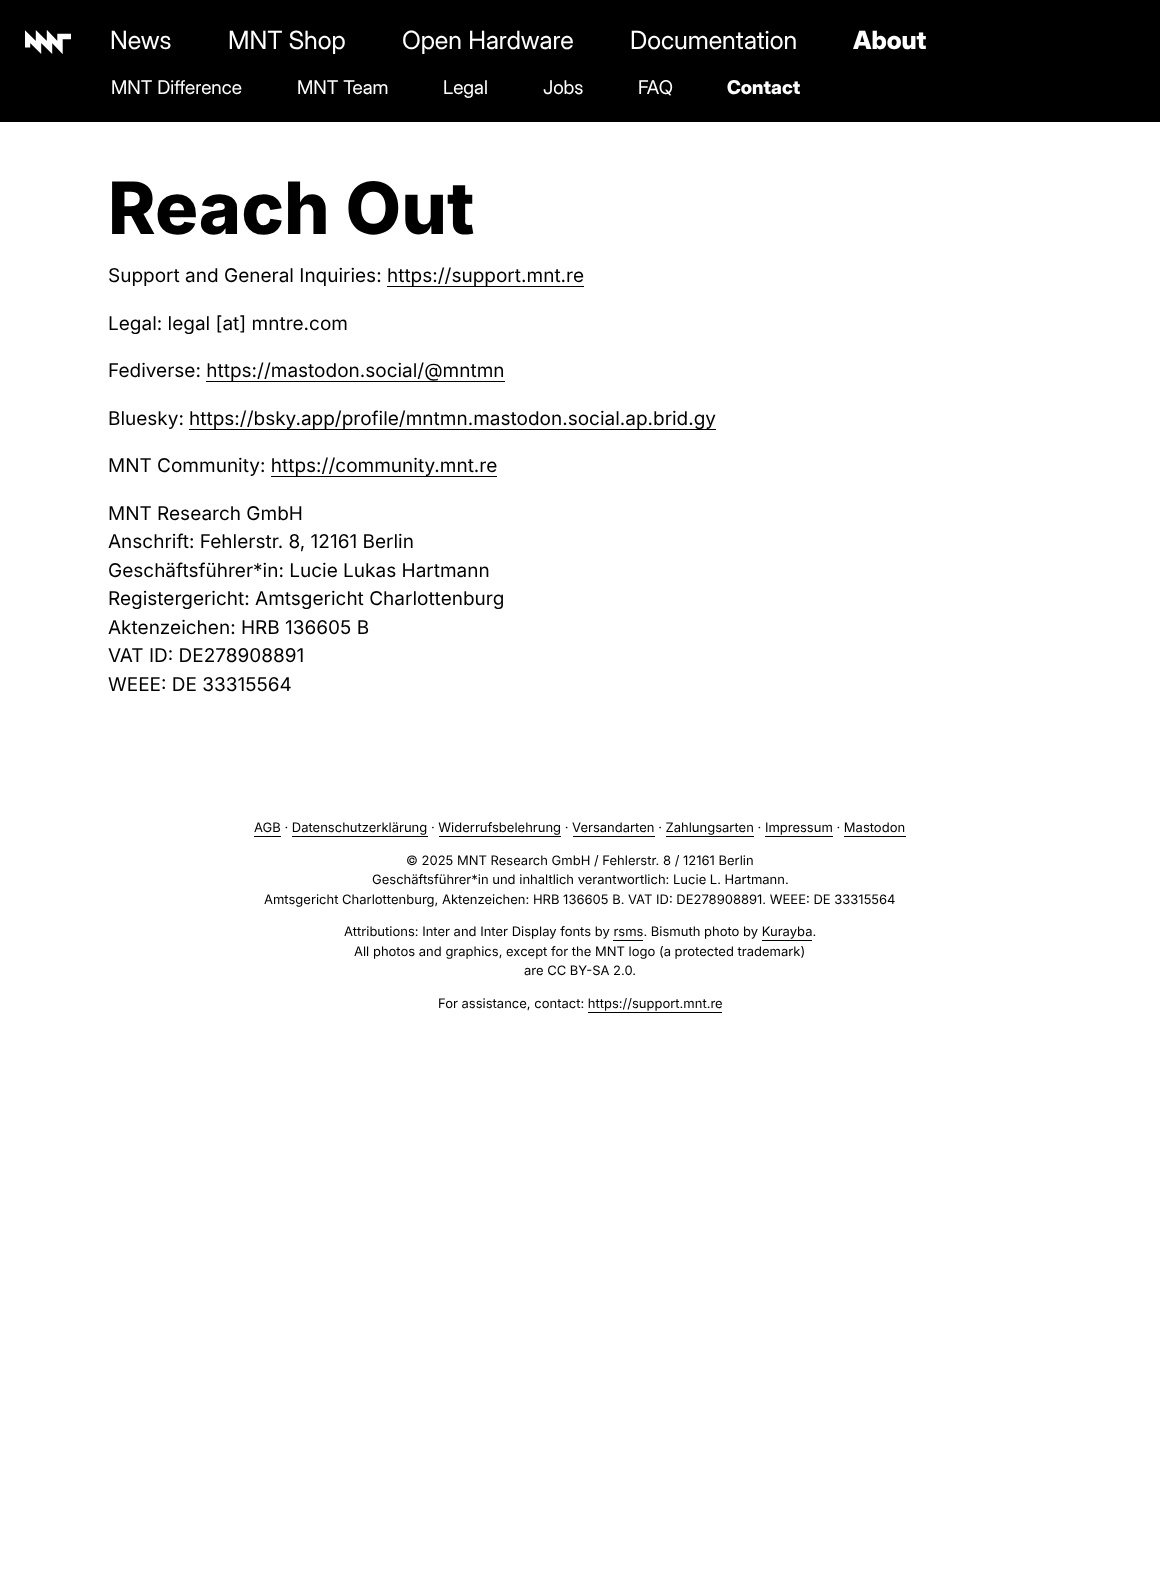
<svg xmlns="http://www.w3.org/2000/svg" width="1160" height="1583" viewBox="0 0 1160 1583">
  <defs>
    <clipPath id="clip1"><rect x="25" y="30" width="46" height="24"/></clipPath>
  </defs>
  <rect width="100%" height="100%" fill="rgb(255,255,255)"/>
  <rect x="0" y="0" width="1160" height="122" fill="rgb(0,0,0)"/>
  <g clip-path="url(#clip1)">
    <path d="M27.5 47.5V36.5L38.5 47.5V36.5L49.5 47.5V36.5L60 47.5V36.5H71" fill="none" stroke="rgb(255,255,255)" stroke-width="5.4"/>
  </g>
  <g font-family="Inter Display" font-size="25" fill="rgb(255,255,255)">
    <text x="110" y="49">News</text>
    <text x="228" y="49">MNT Shop</text>
    <text x="402" y="49">Open Hardware</text>
    <text x="630" y="49">Documentation</text>
  </g>
  <text x="853" y="49" font-family="Inter Display" font-size="25" font-weight="800" fill="rgb(255,255,255)">About</text>
  <g font-family="Inter Display" font-size="19" fill="rgb(255,255,255)">
    <text x="111" y="94">MNT Difference</text>
    <text x="297" y="94">MNT Team</text>
    <text x="443" y="94">Legal</text>
    <text x="543" y="94">Jobs</text>
    <text x="638" y="94">FAQ</text>
  </g>
  <text x="727" y="94" font-family="Inter Display" font-size="19" font-weight="800" fill="rgb(255,255,255)">Contact</text>
  <text x="108" y="234" font-family="Inter" font-size="72" font-weight="800" fill="rgb(0,0,0)">Reach Out</text>
  <text x="108" y="282" font-family="Inter" font-size="19" fill="rgb(0,0,0)">Support and General Inquiries: https://support.mnt.re</text>
  <rect x="387" y="286" width="197" height="1" fill="rgb(0,0,0)"/>
  <g font-family="Inter" font-size="19" fill="rgb(0,0,0)">
    <text x="108" y="330">Legal: legal [at] mntre.com</text>
    <text x="108" y="377">Fediverse: https://mastodon.social/@mntmn</text>
  </g>
  <rect x="206" y="381" width="299" height="1" fill="rgb(0,0,0)"/>
  <text x="108" y="425" font-family="Inter" font-size="19" fill="rgb(0,0,0)">Bluesky:</text>
  <rect x="189" y="429" width="527" height="1" fill="rgb(0,0,0)"/>
  <g font-family="Inter" font-size="19" fill="rgb(0,0,0)">
    <text x="189" y="425">https://bsky.app/profile/mntmn.mastodon.social.ap.brid.gy</text>
    <text x="108" y="472">MNT Community: https://community.mnt.re</text>
  </g>
  <rect x="271" y="476" width="226" height="1" fill="rgb(0,0,0)"/>
  <g font-family="Inter" font-size="19" fill="rgb(0,0,0)">
    <text>
      <tspan x="108" y="520">MNT Research GmbH</tspan>
      <tspan x="108" y="548">Anschrift: Fehlerstr. 8, 12161 Berlin</tspan>
      <tspan x="108" y="577">Geschäftsführer*in: Lucie Lukas Hartmann</tspan>
      <tspan x="108" y="605">Registergericht: Amtsgericht Charlottenburg</tspan>
      <tspan x="108" y="634">Aktenzeichen: HRB 136605 B</tspan>
      <tspan x="108" y="662">VAT ID: DE278908891</tspan>
      <tspan x="108" y="691">WEEE: DE 33315564</tspan>
    </text>
  </g>
  <text x="254" y="832" font-family="Inter" font-size="13" fill="rgb(0,0,0)">AGB · Datenschutzerklärung · Widerrufsbelehrung · Versandarten · Zahlungsarten · Impressum · Mastodon</text>
  <rect x="254" y="836" width="27" height="1" fill="rgb(0,0,0)"/>
  <rect x="292" y="836" width="136" height="1" fill="rgb(0,0,0)"/>
  <rect x="439" y="836" width="122" height="1" fill="rgb(0,0,0)"/>
  <rect x="573" y="836" width="82" height="1" fill="rgb(0,0,0)"/>
  <rect x="666" y="836" width="88" height="1" fill="rgb(0,0,0)"/>
  <rect x="765" y="836" width="68" height="1" fill="rgb(0,0,0)"/>
  <rect x="844" y="836" width="62" height="1" fill="rgb(0,0,0)"/>
  <g font-family="Inter" font-size="13" fill="rgb(0,0,0)">
    <text x="406" y="865">© 2025 MNT Research GmbH / Fehlerstr. 8 / 12161 Berlin</text>
    <text x="372" y="884">Geschäftsführer*in und inhaltlich verantwortlich: Lucie L. Hartmann.</text>
    <text x="264" y="904">Amtsgericht Charlottenburg, Aktenzeichen: HRB 136605 B. VAT ID: DE278908891. WEEE: DE 33315564</text>
    <text x="344" y="936">Attributions: Inter and Inter Display fonts by rsms. Bismuth photo by Kurayba.</text>
  </g>
  <rect x="613" y="940" width="30" height="1" fill="rgb(0,0,0)"/>
  <rect x="762" y="940" width="50" height="1" fill="rgb(0,0,0)"/>
  <g font-family="Inter" font-size="13" fill="rgb(0,0,0)">
    <text x="354" y="956">All photos and graphics, except for the MNT logo (a protected trademark)</text>
    <text x="524" y="975">are CC BY-SA 2.0.</text>
    <text x="438" y="1008">For assistance, contact: https://support.mnt.re</text>
  </g>
  <rect x="588" y="1012" width="134" height="1" fill="rgb(0,0,0)"/>
</svg>
